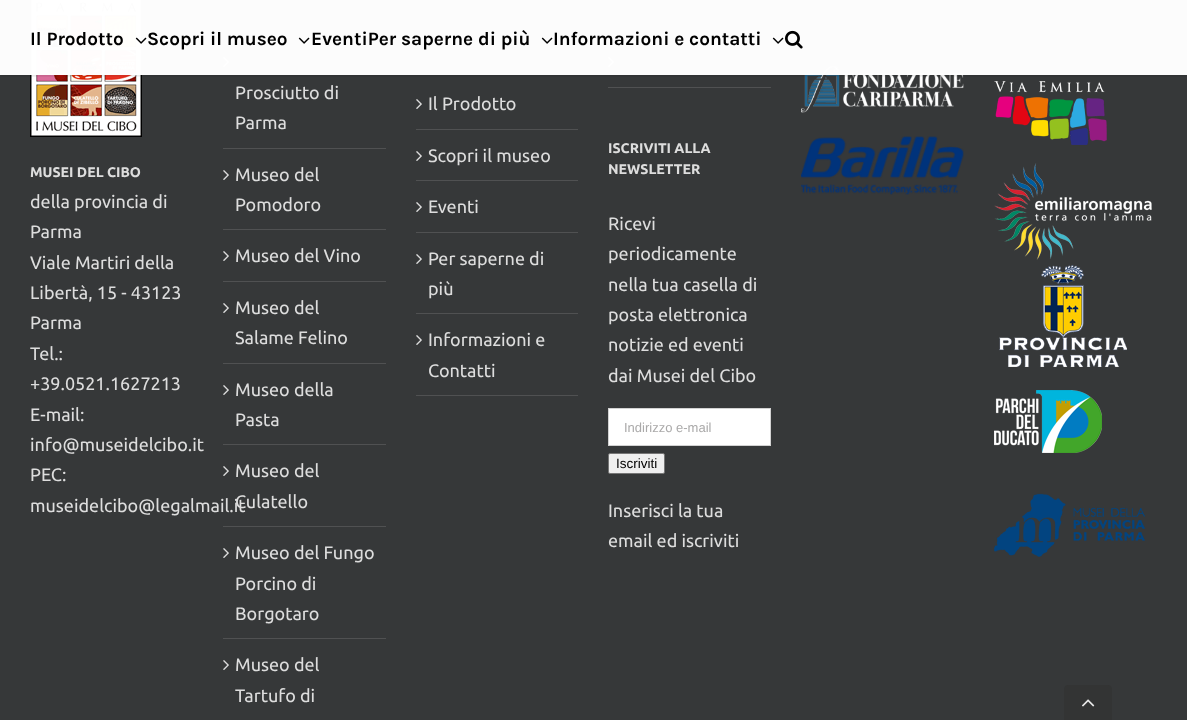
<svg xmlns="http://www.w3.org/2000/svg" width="1187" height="720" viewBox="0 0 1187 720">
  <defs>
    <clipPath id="clip1"><rect x="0" y="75" width="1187" height="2"/></clipPath>
  </defs>
  <rect width="100%" height="100%" fill="rgb(54,56,57)"/>
  <image x="30" y="0" width="112" height="137" href="pic4.png"/>
  <image x="223" y="57" width="6" height="10" href="pic5.png"/>
  <image x="608" y="57" width="6" height="10" href="pic5.png"/>
  <image x="801" y="66" width="163" height="47" href="pic6.png"/>
  <image x="994" y="81" width="113" height="64" href="pic8.png"/>
  <g clip-path="url(#clip1)">
    <rect x="0" y="1" width="1187" height="75" fill="rgba(0,0,0,0.12)" filter="blur(1.5px)"/>
  </g>
  <rect x="0" y="0" width="1187" height="75" fill="rgba(255,255,255,0.99)"/>
  <text x="30" y="45" font-family="Karla" font-size="19" font-weight="bold" fill="rgb(0,0,0)">Il Prodotto</text>
  <image x="135" y="37" width="12" height="7" href="pic1.png"/>
  <text x="147" y="45" font-family="Karla" font-size="19" font-weight="bold" fill="rgb(0,0,0)">Scopri il museo</text>
  <image x="298" y="37" width="12" height="7" href="pic2.png"/>
  <text x="311" y="45" font-family="Karla" font-size="19" font-weight="bold" fill="rgb(0,0,0)">EventiPer saperne di più</text>
  <image x="541" y="37" width="12" height="7" href="pic2.png"/>
  <text x="553" y="45" font-family="Karla" font-size="19" font-weight="bold" fill="rgb(0,0,0)">Informazioni e contatti</text>
  <image x="772" y="37" width="12" height="7" href="pic2.png"/>
  <image x="785" y="30" width="18" height="19" href="pic3.png"/>
  <text x="30" y="177" font-family="Ubuntu" font-size="14" font-weight="bold" fill="rgb(221,221,221)">MUSEI DEL CIBO</text>
  <g font-family="Ubuntu" font-size="18" fill="rgb(221,221,221)">
    <text>
      <tspan x="30" y="208">della provincia di</tspan>
      <tspan x="30" y="238">Parma</tspan>
      <tspan x="30" y="269">Viale Martiri della</tspan>
      <tspan x="30" y="299">Libertà, 15 - 43123</tspan>
      <tspan x="30" y="329">Parma</tspan>
      <tspan x="30" y="360">Tel.:</tspan>
      <tspan x="30" y="390">+39.0521.1627213</tspan>
      <tspan x="30" y="421">E-mail:</tspan>
      <tspan x="30" y="451">info@museidelcibo.it</tspan>
      <tspan x="30" y="481">PEC:</tspan>
      <tspan x="30" y="512">museidelcibo@legalmail.it</tspan>
    </text>
  </g>
  <rect x="223" y="148" width="163" height="1" fill="rgb(80,81,82)"/>
  <g font-family="Ubuntu" font-size="18" fill="rgb(221,221,221)">
    <text>
      <tspan x="235" y="99">Prosciutto di</tspan>
      <tspan x="235" y="129">Parma</tspan>
    </text>
  </g>
  <rect x="223" y="229" width="163" height="1" fill="rgb(80,81,82)"/>
  <image x="223" y="170" width="6" height="10" href="pic5.png"/>
  <g font-family="Ubuntu" font-size="18" fill="rgb(221,221,221)">
    <text>
      <tspan x="235" y="181">Museo del</tspan>
      <tspan x="235" y="211">Pomodoro</tspan>
    </text>
  </g>
  <rect x="223" y="281" width="163" height="1" fill="rgb(80,81,82)"/>
  <image x="223" y="251" width="6" height="10" href="pic5.png"/>
  <text x="235" y="262" font-family="Ubuntu" font-size="18" fill="rgb(221,221,221)">Museo del Vino</text>
  <rect x="223" y="363" width="163" height="1" fill="rgb(80,81,82)"/>
  <image x="223" y="303" width="6" height="10" href="pic5.png"/>
  <g font-family="Ubuntu" font-size="18" fill="rgb(221,221,221)">
    <text>
      <tspan x="235" y="314">Museo del</tspan>
      <tspan x="235" y="344">Salame Felino</tspan>
    </text>
  </g>
  <rect x="223" y="444" width="163" height="1" fill="rgb(80,81,82)"/>
  <image x="223" y="385" width="6" height="10" href="pic5.png"/>
  <g font-family="Ubuntu" font-size="18" fill="rgb(221,221,221)">
    <text>
      <tspan x="235" y="396">Museo della</tspan>
      <tspan x="235" y="426">Pasta</tspan>
    </text>
  </g>
  <rect x="223" y="526" width="163" height="1" fill="rgb(80,81,82)"/>
  <image x="223" y="466" width="6" height="10" href="pic5.png"/>
  <g font-family="Ubuntu" font-size="18" fill="rgb(221,221,221)">
    <text>
      <tspan x="235" y="477">Museo del</tspan>
      <tspan x="235" y="508">Culatello</tspan>
    </text>
  </g>
  <rect x="223" y="638" width="163" height="1" fill="rgb(80,81,82)"/>
  <image x="223" y="548" width="6" height="10" href="pic5.png"/>
  <g font-family="Ubuntu" font-size="18" fill="rgb(221,221,221)">
    <text>
      <tspan x="235" y="559">Museo del Fungo</tspan>
      <tspan x="235" y="590">Porcino di</tspan>
      <tspan x="235" y="620">Borgotaro</tspan>
    </text>
  </g>
  <image x="223" y="660" width="6" height="10" href="pic5.png"/>
  <g font-family="Ubuntu" font-size="18" fill="rgb(221,221,221)">
    <text>
      <tspan x="235" y="671">Museo del</tspan>
      <tspan x="235" y="702">Tartufo di</tspan>
    </text>
  </g>
  <rect x="416" y="129" width="162" height="1" fill="rgb(80,81,82)"/>
  <image x="416" y="99" width="6" height="10" href="pic5.png"/>
  <text x="428" y="110" font-family="Ubuntu" font-size="18" fill="rgb(221,221,221)">Il Prodotto</text>
  <rect x="416" y="180" width="162" height="1" fill="rgb(80,81,82)"/>
  <image x="416" y="151" width="6" height="10" href="pic5.png"/>
  <text x="428" y="162" font-family="Ubuntu" font-size="18" fill="rgb(221,221,221)">Scopri il museo</text>
  <rect x="416" y="232" width="162" height="1" fill="rgb(80,81,82)"/>
  <image x="416" y="202" width="6" height="10" href="pic5.png"/>
  <text x="428" y="213" font-family="Ubuntu" font-size="18" fill="rgb(221,221,221)">Eventi</text>
  <rect x="416" y="313" width="162" height="1" fill="rgb(80,81,82)"/>
  <image x="416" y="254" width="6" height="10" href="pic5.png"/>
  <g font-family="Ubuntu" font-size="18" fill="rgb(221,221,221)">
    <text>
      <tspan x="428" y="265">Per saperne di</tspan>
      <tspan x="428" y="295">più</tspan>
    </text>
  </g>
  <rect x="416" y="395" width="162" height="1" fill="rgb(80,81,82)"/>
  <image x="416" y="335" width="6" height="10" href="pic5.png"/>
  <g font-family="Ubuntu" font-size="18" fill="rgb(221,221,221)">
    <text>
      <tspan x="428" y="346">Informazioni e</tspan>
      <tspan x="428" y="377">Contatti</tspan>
    </text>
  </g>
  <rect x="608" y="87" width="163" height="1" fill="rgb(80,81,82)"/>
  <g font-family="Ubuntu" font-size="14" font-weight="bold" fill="rgb(221,221,221)">
    <text>
      <tspan x="608" y="153">ISCRIVITI ALLA</tspan>
      <tspan x="608" y="174">NEWSLETTER</tspan>
    </text>
  </g>
  <g font-family="Ubuntu" font-size="18" fill="rgb(221,221,221)">
    <text>
      <tspan x="608" y="230">Ricevi</tspan>
      <tspan x="608" y="260">periodicamente</tspan>
      <tspan x="608" y="291">nella tua casella di</tspan>
      <tspan x="608" y="321">posta elettronica</tspan>
      <tspan x="608" y="351">notizie ed eventi</tspan>
      <tspan x="608" y="382">dai Musei del Cibo</tspan>
    </text>
  </g>
  <rect x="608.5" y="408.5" width="162" height="37" fill="rgb(255,255,255)" stroke="rgb(210,210,210)"/>
  <text x="624" y="432" font-family="Liberation Sans" font-size="13" fill="rgb(170,169,169)">Indirizzo e-mail</text>
  <rect x="608.5" y="453.5" width="56" height="20" rx="1.5" fill="rgb(239,239,239)" stroke="rgb(118,118,118)"/>
  <text x="616" y="468" font-family="Liberation Sans" font-size="13.5" fill="rgb(0,0,0)">Iscriviti</text>
  <g font-family="Ubuntu" font-size="18" fill="rgb(221,221,221)">
    <text>
      <tspan x="608" y="517">Inserisci la tua</tspan>
      <tspan x="608" y="547">email ed iscriviti</tspan>
    </text>
  </g>
  <image x="801" y="136" width="163" height="59" href="pic7.png"/>
  <image x="994" y="163" width="158" height="97" href="pic9.png"/>
  <image x="999" y="265" width="128" height="102" href="pic10.png"/>
  <image x="994" y="390" width="108" height="63" href="pic11.png"/>
  <image x="994" y="493" width="151" height="64" href="pic12.png"/>
  <path d="M1068 685H1108C1110 685 1112 687 1112 689V720H1064V689C1064 687 1066 685 1068 685Z" fill="rgb(51,52,52)"/>
  <image x="1082" y="699" width="13" height="8" href="pic13.png"/>
</svg>
